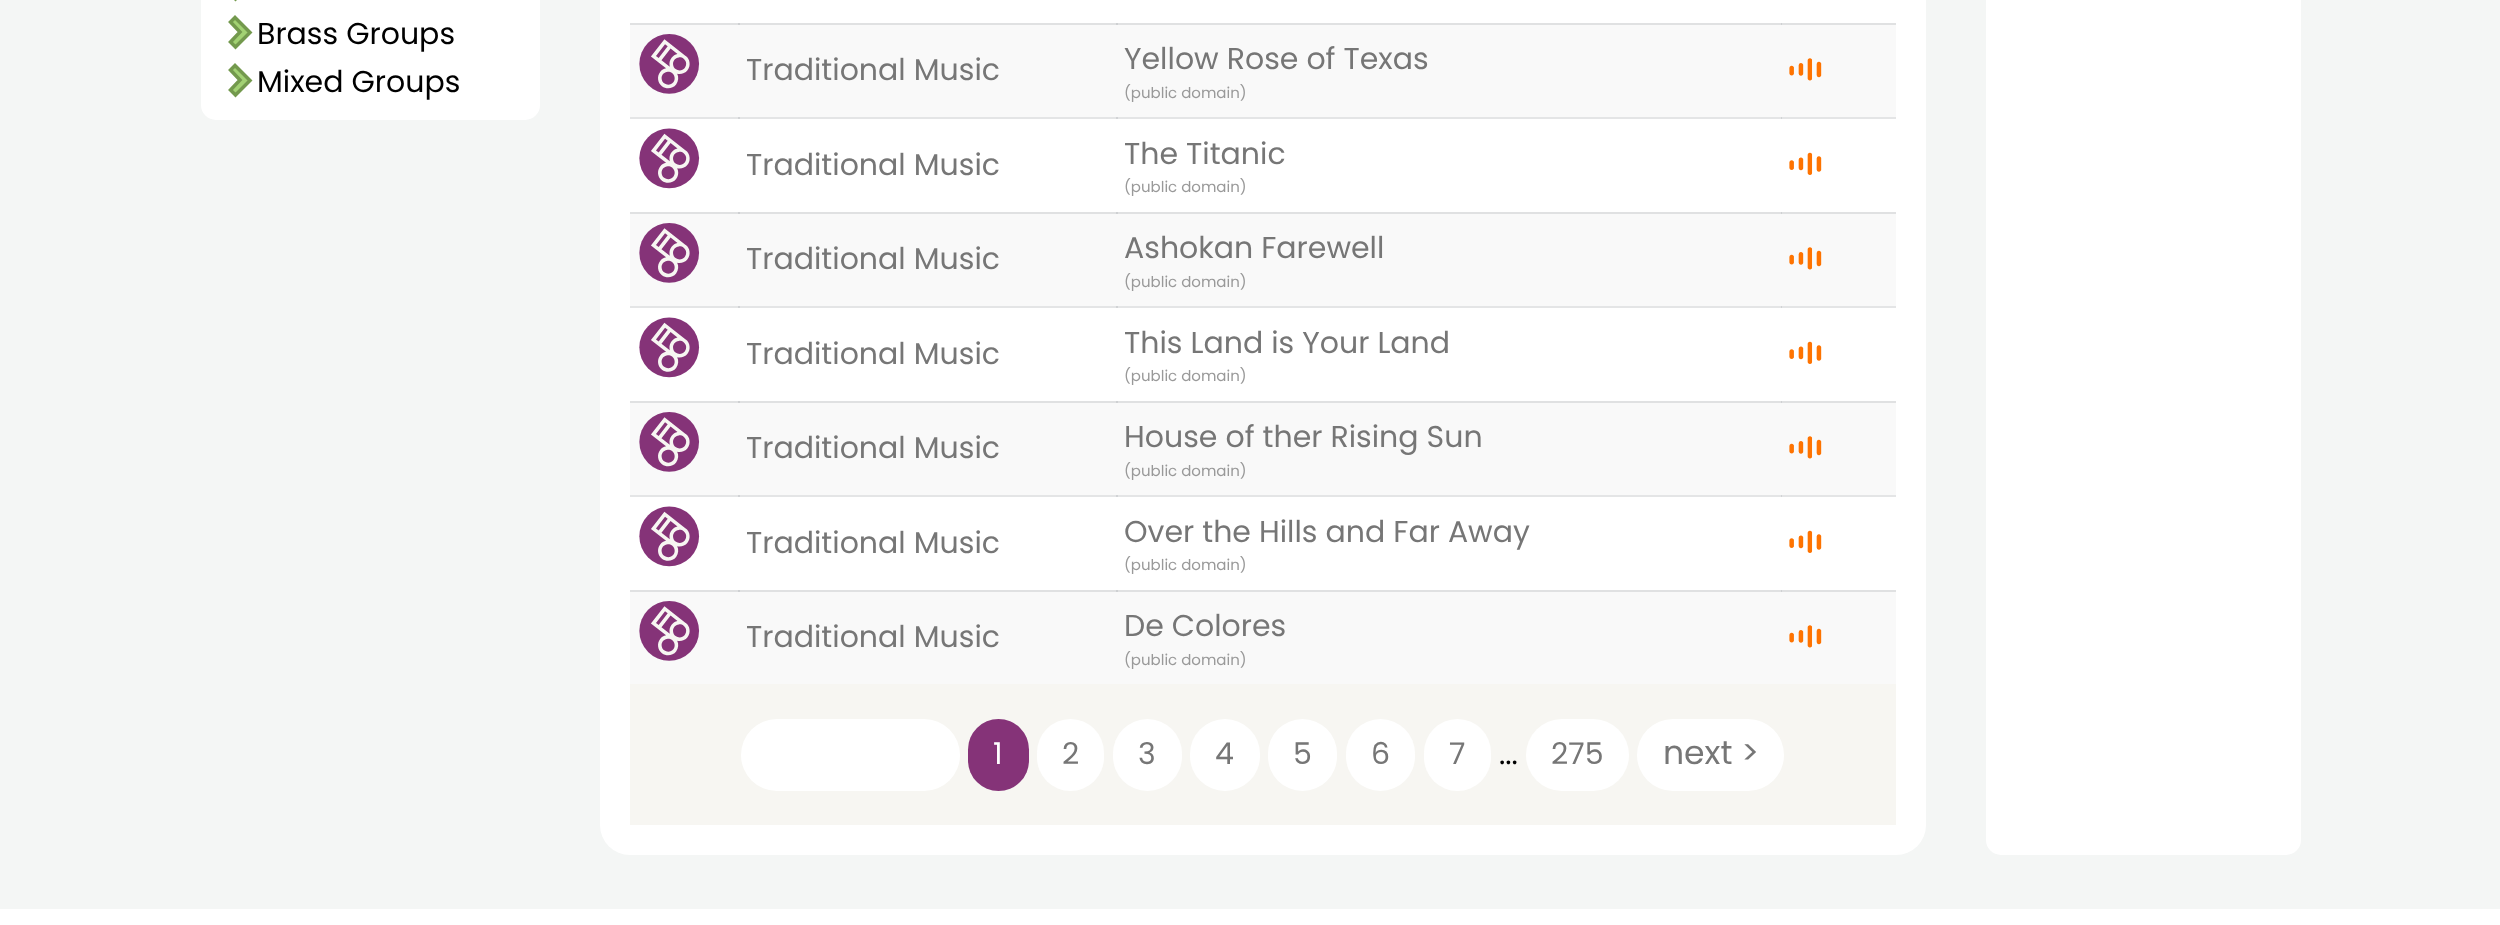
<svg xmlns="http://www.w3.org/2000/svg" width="2500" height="925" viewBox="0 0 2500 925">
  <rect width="100%" height="100%" fill="rgb(244,246,245)"/>
  <rect x="201" y="-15" width="339" height="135" rx="15" fill="rgb(255,255,255)"/>
  <path d="M230.5-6L240-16L230.5-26L235-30.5L250-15.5L235.5-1Z" fill="none" stroke="rgb(115,153,77)" stroke-width="3.5"/>
  <path d="M230.5 42L240 32L230.5 22L235 17.5L250 32.5L235.5 47Z" fill="rgb(162,209,115)" stroke="rgb(115,153,77)" stroke-width="3.5"/>
  <text x="257" y="44" font-family="Poppins" font-size="30" fill="rgb(0,0,0)">Brass Groups</text>
  <path d="M230.5 90L240 80L230.5 70L235 65.5L250 80.5L235.5 95Z" fill="rgb(162,209,115)" stroke="rgb(115,153,77)" stroke-width="3.5"/>
  <text x="257" y="92" font-family="Poppins" font-size="30" fill="rgb(0,0,0)">Mixed Groups</text>
  <rect x="600" y="-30" width="1326" height="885" rx="30" fill="rgb(255,255,255)"/>
  <rect x="630" y="117" width="1266" height="2" fill="rgb(228,229,230)"/>
  <rect x="738" y="117" width="2" height="2" fill="rgb(209,211,213)"/>
  <rect x="1116" y="117" width="2" height="2" fill="rgb(209,211,213)"/>
  <rect x="630" y="306" width="1266" height="2" fill="rgb(228,229,230)"/>
  <rect x="738" y="306" width="2" height="2" fill="rgb(209,211,213)"/>
  <rect x="1116" y="306" width="2" height="2" fill="rgb(209,211,213)"/>
  <rect x="630" y="495" width="1266" height="2" fill="rgb(228,229,230)"/>
  <rect x="738" y="495" width="2" height="2" fill="rgb(209,211,213)"/>
  <rect x="1116" y="495" width="2" height="2" fill="rgb(209,211,213)"/>
  <rect x="630" y="25" width="1266" height="92" fill="rgb(249,249,249)"/>
  <rect x="630" y="23" width="1266" height="2" fill="rgb(224,225,226)"/>
  <rect x="738" y="23" width="2" height="2" fill="rgb(206,208,210)"/>
  <rect x="1116" y="23" width="2" height="2" fill="rgb(206,208,210)"/>
  <image x="639" y="34" width="61" height="60" href="pic1.png"/>
  <g font-family="Poppins" font-size="30" fill="rgb(118,118,118)">
    <text x="746" y="80">Traditional Music</text>
    <text x="1124" y="69">Yellow Rose of Texas</text>
  </g>
  <text x="1124" y="98" font-family="Poppins" font-size="15" fill="rgb(153,153,153)">(public domain)</text>
  <rect x="1781" y="23" width="1" height="2" fill="rgb(206,208,210)"/>
  <image x="1789" y="58" width="33" height="23" href="pic2.png"/>
  <image x="639" y="128" width="61" height="61" href="pic3.png"/>
  <g font-family="Poppins" font-size="30" fill="rgb(118,118,118)">
    <text x="746" y="175">Traditional Music</text>
    <text x="1124" y="164">The Titanic</text>
  </g>
  <text x="1124" y="192" font-family="Poppins" font-size="15" fill="rgb(153,153,153)">(public domain)</text>
  <rect x="1781" y="117" width="1" height="2" fill="rgb(209,211,213)"/>
  <image x="1789" y="152" width="33" height="23" href="pic4.png"/>
  <rect x="630" y="214" width="1266" height="92" fill="rgb(249,249,249)"/>
  <rect x="630" y="212" width="1266" height="2" fill="rgb(224,225,226)"/>
  <rect x="738" y="212" width="2" height="2" fill="rgb(206,208,210)"/>
  <rect x="1116" y="212" width="2" height="2" fill="rgb(206,208,210)"/>
  <image x="639" y="223" width="61" height="60" href="pic1.png"/>
  <g font-family="Poppins" font-size="30" fill="rgb(118,118,118)">
    <text x="746" y="269">Traditional Music</text>
    <text x="1124" y="258">Ashokan Farewell</text>
  </g>
  <text x="1124" y="287" font-family="Poppins" font-size="15" fill="rgb(153,153,153)">(public domain)</text>
  <rect x="1781" y="212" width="1" height="2" fill="rgb(206,208,210)"/>
  <image x="1789" y="247" width="33" height="23" href="pic2.png"/>
  <image x="639" y="317" width="61" height="61" href="pic5.png"/>
  <g font-family="Poppins" font-size="30" fill="rgb(118,118,118)">
    <text x="746" y="364">Traditional Music</text>
    <text x="1124" y="353">This Land is Your Land</text>
  </g>
  <text x="1124" y="381" font-family="Poppins" font-size="15" fill="rgb(153,153,153)">(public domain)</text>
  <rect x="1781" y="306" width="1" height="2" fill="rgb(209,211,213)"/>
  <image x="1789" y="341" width="33" height="23" href="pic4.png"/>
  <rect x="630" y="403" width="1266" height="92" fill="rgb(249,249,249)"/>
  <rect x="630" y="401" width="1266" height="2" fill="rgb(224,225,226)"/>
  <rect x="738" y="401" width="2" height="2" fill="rgb(206,208,210)"/>
  <rect x="1116" y="401" width="2" height="2" fill="rgb(206,208,210)"/>
  <image x="639" y="412" width="61" height="60" href="pic1.png"/>
  <g font-family="Poppins" font-size="30" fill="rgb(118,118,118)">
    <text x="746" y="458">Traditional Music</text>
    <text x="1124" y="447">House of ther Rising Sun</text>
  </g>
  <text x="1124" y="476" font-family="Poppins" font-size="15" fill="rgb(153,153,153)">(public domain)</text>
  <rect x="1781" y="401" width="1" height="2" fill="rgb(206,208,210)"/>
  <image x="1789" y="436" width="33" height="23" href="pic2.png"/>
  <image x="639" y="506" width="61" height="61" href="pic5.png"/>
  <g font-family="Poppins" font-size="30" fill="rgb(118,118,118)">
    <text x="746" y="553">Traditional Music</text>
    <text x="1124" y="542">Over the Hills and Far Away</text>
  </g>
  <text x="1124" y="570" font-family="Poppins" font-size="15" fill="rgb(153,153,153)">(public domain)</text>
  <rect x="1781" y="495" width="1" height="2" fill="rgb(209,211,213)"/>
  <image x="1789" y="530" width="33" height="23" href="pic4.png"/>
  <rect x="630" y="592" width="1266" height="92" fill="rgb(249,249,249)"/>
  <rect x="630" y="590" width="1266" height="2" fill="rgb(224,225,226)"/>
  <rect x="738" y="590" width="2" height="2" fill="rgb(206,208,210)"/>
  <rect x="1116" y="590" width="2" height="2" fill="rgb(206,208,210)"/>
  <image x="639" y="601" width="61" height="60" href="pic1.png"/>
  <g font-family="Poppins" font-size="30" fill="rgb(118,118,118)">
    <text x="746" y="647">Traditional Music</text>
    <text x="1124" y="636">De Colores</text>
  </g>
  <text x="1124" y="665" font-family="Poppins" font-size="15" fill="rgb(153,153,153)">(public domain)</text>
  <rect x="1781" y="590" width="1" height="2" fill="rgb(206,208,210)"/>
  <image x="1789" y="625" width="33" height="23" href="pic2.png"/>
  <rect x="630" y="684" width="1266" height="141" fill="rgb(247,246,242)"/>
  <rect x="741" y="719" width="219" height="72" rx="36" fill="rgb(255,255,255)"/>
  <rect x="968" y="719" width="61" height="72" rx="30.5" fill="rgb(133,51,120)"/>
  <text x="993" y="764" font-family="Poppins" font-size="30" fill="rgb(255,255,255)">1</text>
  <rect x="1037" y="719" width="67" height="72" rx="33.5" fill="rgb(255,255,255)"/>
  <text x="1062" y="764" font-family="Poppins" font-size="30" fill="rgb(118,118,118)">2</text>
  <rect x="1113" y="719" width="69" height="72" rx="34.5" fill="rgb(255,255,255)"/>
  <text x="1138" y="764" font-family="Poppins" font-size="30" fill="rgb(118,118,118)">3</text>
  <rect x="1190" y="719" width="70" height="72" rx="35" fill="rgb(255,255,255)"/>
  <text x="1215" y="764" font-family="Poppins" font-size="30" fill="rgb(118,118,118)">4</text>
  <rect x="1268" y="719" width="69" height="72" rx="34.5" fill="rgb(255,255,255)"/>
  <text x="1293" y="764" font-family="Poppins" font-size="30" fill="rgb(118,118,118)">5</text>
  <rect x="1346" y="719" width="69" height="72" rx="34.5" fill="rgb(255,255,255)"/>
  <text x="1371" y="764" font-family="Poppins" font-size="30" fill="rgb(118,118,118)">6</text>
  <rect x="1424" y="719" width="67" height="72" rx="33.5" fill="rgb(255,255,255)"/>
  <text x="1449" y="764" font-family="Poppins" font-size="30" fill="rgb(118,118,118)">7</text>
  <text x="1499" y="764" font-family="Poppins" font-size="30" fill="rgb(0,0,0)">...</text>
  <rect x="1526" y="719" width="103" height="72" rx="36" fill="rgb(255,255,255)"/>
  <text x="1551" y="764" font-family="Poppins" font-size="30" fill="rgb(118,118,118)">275</text>
  <rect x="1637" y="719" width="147" height="72" rx="36" fill="rgb(255,255,255)"/>
  <text x="1663" y="764" font-family="Poppins" font-size="33" fill="rgb(118,118,118)">next &gt;</text>
  <rect x="1986" y="-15" width="315" height="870" rx="15" fill="rgb(255,255,255)"/>
  <rect x="0" y="909" width="2500" height="16" fill="rgb(255,255,255)"/>
</svg>
